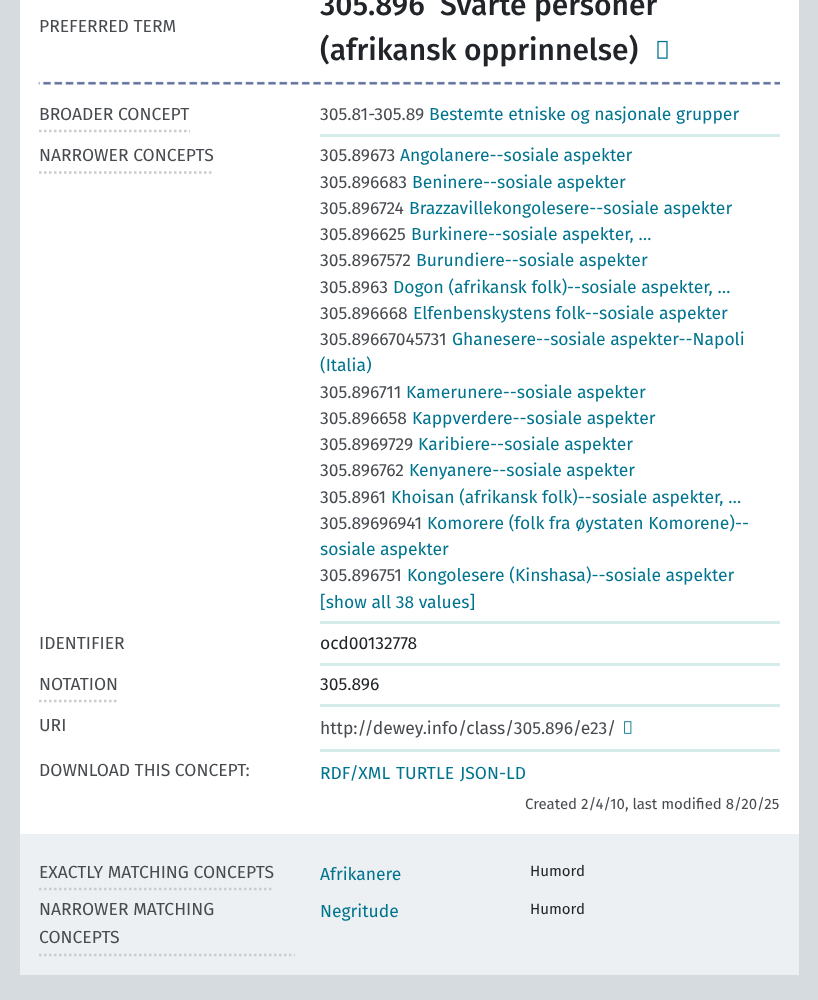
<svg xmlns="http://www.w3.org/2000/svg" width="818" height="1000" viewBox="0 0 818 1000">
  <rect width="100%" height="100%" fill="rgb(213,219,222)"/>
  <rect x="20" y="0" width="779" height="834" fill="rgb(255,255,255)"/>
  <text x="39" y="32" font-family="Fira Sans" font-size="17.5" fill="rgb(71,75,79)">PREFERRED TERM</text>
  <g font-family="Fira Sans" font-size="30" font-weight="500" fill="rgb(33,37,41)">
    <text x="320" y="15">305.896</text>
    <text x="440" y="15">Svarte personer</text>
    <text x="320" y="60">(afrikansk opprinnelse)</text>
  </g>
  <image x="657" y="40" width="11" height="19" href="pic1.png"/>
  <image x="38" y="81" width="742" height="4" href="pic2.png"/>
  <path d="M39 131H190" fill="none" stroke="rgb(204,204,204)" stroke-width="2.5" stroke-dasharray="2.5 2.5"/>
  <text x="39" y="120" font-family="Fira Sans" font-size="17.5" fill="rgb(71,75,79)">BROADER CONCEPT</text>
  <rect x="320" y="134" width="460" height="3" fill="rgb(212,237,235)"/>
  <text x="320" y="120" font-family="Fira Sans" font-size="17.5" fill="rgb(71,75,79)">305.81-305.89</text>
  <text x="429" y="120" font-family="Fira Sans" font-size="17.5" fill="rgb(0,116,143)">Bestemte etniske og nasjonale grupper</text>
  <path d="M39 172.5H214" fill="none" stroke="rgb(204,204,204)" stroke-width="2.5" stroke-dasharray="2.5 2.5"/>
  <text x="39" y="161" font-family="Fira Sans" font-size="17.5" fill="rgb(71,75,79)">NARROWER CONCEPTS</text>
  <rect x="320" y="621" width="460" height="3" fill="rgb(212,237,235)"/>
  <text x="320" y="161" font-family="Fira Sans" font-size="17.5" fill="rgb(71,75,79)">305.89673</text>
  <text x="400" y="161" font-family="Fira Sans" font-size="17.5" fill="rgb(0,116,143)">Angolanere--sosiale aspekter</text>
  <text x="320" y="188" font-family="Fira Sans" font-size="17.5" fill="rgb(71,75,79)">305.896683</text>
  <text x="412" y="188" font-family="Fira Sans" font-size="17.5" fill="rgb(0,116,143)">Beninere--sosiale aspekter</text>
  <text x="320" y="214" font-family="Fira Sans" font-size="17.5" fill="rgb(71,75,79)">305.896724</text>
  <text x="409" y="214" font-family="Fira Sans" font-size="17.5" fill="rgb(0,116,143)">Brazzavillekongolesere--sosiale aspekter</text>
  <text x="320" y="240" font-family="Fira Sans" font-size="17.5" fill="rgb(71,75,79)">305.896625</text>
  <text x="411" y="240" font-family="Fira Sans" font-size="17.5" fill="rgb(0,116,143)">Burkinere--sosiale aspekter, …</text>
  <text x="320" y="266" font-family="Fira Sans" font-size="17.5" fill="rgb(71,75,79)">305.8967572</text>
  <text x="416" y="266" font-family="Fira Sans" font-size="17.5" fill="rgb(0,116,143)">Burundiere--sosiale aspekter</text>
  <text x="320" y="293" font-family="Fira Sans" font-size="17.5" fill="rgb(71,75,79)">305.8963</text>
  <text x="393" y="293" font-family="Fira Sans" font-size="17.5" fill="rgb(0,116,143)">Dogon (afrikansk folk)--sosiale aspekter, …</text>
  <text x="320" y="319" font-family="Fira Sans" font-size="17.5" fill="rgb(71,75,79)">305.896668</text>
  <text x="413" y="319" font-family="Fira Sans" font-size="17.5" fill="rgb(0,116,143)">Elfenbenskystens folk--sosiale aspekter</text>
  <text x="320" y="345" font-family="Fira Sans" font-size="17.5" fill="rgb(71,75,79)">305.89667045731</text>
  <g font-family="Fira Sans" font-size="17.5" fill="rgb(0,116,143)">
    <text x="452" y="345">Ghanesere--sosiale aspekter--Napoli</text>
    <text x="320" y="371">(Italia)</text>
  </g>
  <text x="320" y="398" font-family="Fira Sans" font-size="17.5" fill="rgb(71,75,79)">305.896711</text>
  <text x="406" y="398" font-family="Fira Sans" font-size="17.5" fill="rgb(0,116,143)">Kamerunere--sosiale aspekter</text>
  <text x="320" y="424" font-family="Fira Sans" font-size="17.5" fill="rgb(71,75,79)">305.896658</text>
  <text x="412" y="424" font-family="Fira Sans" font-size="17.5" fill="rgb(0,116,143)">Kappverdere--sosiale aspekter</text>
  <text x="320" y="450" font-family="Fira Sans" font-size="17.5" fill="rgb(71,75,79)">305.8969729</text>
  <text x="418" y="450" font-family="Fira Sans" font-size="17.5" fill="rgb(0,116,143)">Karibiere--sosiale aspekter</text>
  <text x="320" y="476" font-family="Fira Sans" font-size="17.5" fill="rgb(71,75,79)">305.896762</text>
  <text x="409" y="476" font-family="Fira Sans" font-size="17.5" fill="rgb(0,116,143)">Kenyanere--sosiale aspekter</text>
  <text x="320" y="503" font-family="Fira Sans" font-size="17.5" fill="rgb(71,75,79)">305.8961</text>
  <text x="391" y="503" font-family="Fira Sans" font-size="17.5" fill="rgb(0,116,143)">Khoisan (afrikansk folk)--sosiale aspekter, …</text>
  <text x="320" y="529" font-family="Fira Sans" font-size="17.5" fill="rgb(71,75,79)">305.89696941</text>
  <g font-family="Fira Sans" font-size="17.5" fill="rgb(0,116,143)">
    <text x="427" y="529">Komorere (folk fra øystaten Komorene)--</text>
    <text x="320" y="555">sosiale aspekter</text>
  </g>
  <text x="320" y="581" font-family="Fira Sans" font-size="17.5" fill="rgb(71,75,79)">305.896751</text>
  <g font-family="Fira Sans" font-size="17.5" fill="rgb(0,116,143)">
    <text x="407" y="581">Kongolesere (Kinshasa)--sosiale aspekter</text>
    <text x="320" y="608">[show all 38 values]</text>
  </g>
  <text x="39" y="649" font-family="Fira Sans" font-size="17.5" fill="rgb(71,75,79)">IDENTIFIER</text>
  <rect x="320" y="663" width="460" height="3" fill="rgb(212,237,235)"/>
  <text x="320" y="649" font-family="Fira Sans" font-size="17.5" fill="rgb(33,37,41)">ocd00132778</text>
  <path d="M39 701H119" fill="none" stroke="rgb(204,204,204)" stroke-width="2.5" stroke-dasharray="2.5 2.5"/>
  <text x="39" y="690" font-family="Fira Sans" font-size="17.5" fill="rgb(71,75,79)">NOTATION</text>
  <rect x="320" y="704" width="460" height="3" fill="rgb(212,237,235)"/>
  <text x="320" y="690" font-family="Fira Sans" font-size="17.5" fill="rgb(33,37,41)">305.896</text>
  <text x="39" y="731" font-family="Fira Sans" font-size="17.5" fill="rgb(71,75,79)">URI</text>
  <rect x="320" y="749" width="460" height="3" fill="rgb(212,237,235)"/>
  <text x="320" y="734" font-family="Fira Sans" font-size="17.5" fill="rgb(71,75,79)">http://dewey.info/class/305.896/e23/</text>
  <image x="624" y="721" width="8" height="13" href="pic3.png"/>
  <text x="39" y="776" font-family="Fira Sans" font-size="17.5" fill="rgb(71,75,79)">DOWNLOAD THIS CONCEPT:</text>
  <g font-family="Fira Sans" font-size="17.5" fill="rgb(0,116,143)">
    <text x="320" y="779">RDF/XML</text>
    <text x="396" y="779">TURTLE</text>
    <text x="460" y="779">JSON-LD</text>
  </g>
  <text x="525" y="809" font-family="Fira Sans" font-size="15" fill="rgb(71,75,79)">Created 2/4/10, last modified 8/20/25</text>
  <rect x="20" y="834" width="779" height="141" fill="rgb(237,240,242)"/>
  <path d="M39 889H274" fill="none" stroke="rgb(204,204,204)" stroke-width="2.5" stroke-dasharray="2.5 2.5"/>
  <text x="39" y="878" font-family="Fira Sans" font-size="17.5" fill="rgb(71,75,79)">EXACTLY MATCHING CONCEPTS</text>
  <text x="320" y="880" font-family="Fira Sans" font-size="17.5" fill="rgb(0,116,143)">Afrikanere</text>
  <text x="530" y="876" font-family="Fira Sans" font-size="15" fill="rgb(33,37,41)">Humord</text>
  <path d="M39 955H295" fill="none" stroke="rgb(204,204,204)" stroke-width="2.5" stroke-dasharray="2.5 2.5"/>
  <g font-family="Fira Sans" font-size="17.5" fill="rgb(71,75,79)">
    <text>
      <tspan x="39" y="915">NARROWER MATCHING</tspan>
      <tspan x="39" y="943">CONCEPTS</tspan>
    </text>
  </g>
  <text x="320" y="917" font-family="Fira Sans" font-size="17.5" fill="rgb(0,116,143)">Negritude</text>
  <text x="530" y="914" font-family="Fira Sans" font-size="15" fill="rgb(33,37,41)">Humord</text>
</svg>
